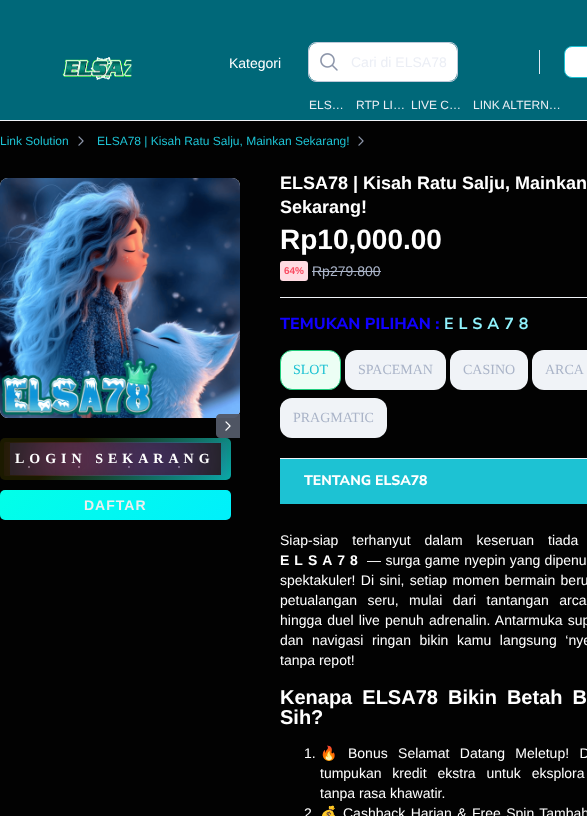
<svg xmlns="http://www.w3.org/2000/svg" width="587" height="816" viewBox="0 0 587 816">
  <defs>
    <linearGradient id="g1" gradientUnits="userSpaceOnUse" x1="157" y1="294" x2="536" y2="708"><stop offset="0.1" stop-color="rgb(28,26,0)"/><stop offset="0.45" stop-color="rgb(0,240,251)"/><stop offset="0.67" stop-color="rgb(0,240,251)"/><stop offset="0.87" stop-color="rgb(28,26,0)"/></linearGradient>
    <clipPath id="clip1"><rect x="4" y="442" width="223" height="34" rx="5"/></clipPath>
    <linearGradient id="g2" gradientUnits="userSpaceOnUse" x1="181" y1="570" x2="50" y2="440"><stop offset="0" stop-color="rgb(0,240,251)"/><stop offset="1" stop-color="rgb(2,255,232)"/></linearGradient>
    <clipPath id="clip2"><rect x="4" y="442" width="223" height="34" rx="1.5"/></clipPath>
  </defs>
  <rect width="100%" height="100%" fill="rgb(2,2,2)"/>
  <rect x="0" y="0" width="587" height="120" fill="rgb(0,104,121)"/>
  <rect x="0" y="120" width="587" height="1" fill="rgb(240,243,247)"/>
  <image x="62" y="57" width="70" height="23" href="pic1.png"/>
  <text x="229" y="68" font-family="Liberation Sans" font-size="14" fill="rgb(255,255,255)">Kategori</text>
  <rect x="308.5" y="42.5" width="149" height="39" rx="7.5" fill="none" stroke="rgb(191,201,217)"/>
  <rect x="309" y="43" width="148" height="38" rx="8" fill="rgb(255,255,255)"/>
  <image x="320" y="53" width="18" height="18" href="pic2.png"/>
  <text x="351" y="67" font-family="Liberation Sans" font-size="14" fill="rgb(235,238,245)">Cari di ELSA78</text>
  <rect x="539" y="50" width="1" height="24" fill="rgb(228,235,245)"/>
  <rect x="564.5" y="46.5" width="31" height="31" rx="7.5" fill="rgb(255,255,255)" stroke="rgb(29,194,211)"/>
  <g font-family="Liberation Sans" font-size="12" fill="rgb(235,238,245)">
    <text x="309" y="109">ELS…</text>
    <text x="356" y="109">RTP LI…</text>
    <text x="411" y="109">LIVE C…</text>
    <text x="473" y="109">LINK ALTERN…</text>
  </g>
  <text x="0" y="145" font-family="Liberation Sans" font-size="12" fill="rgb(29,194,211)">Link Solution</text>
  <image x="78" y="136" width="6" height="10" href="pic3.png"/>
  <text x="97" y="145" font-family="Liberation Sans" font-size="12" fill="rgb(29,194,211)">ELSA78 | Kisah Ratu Salju, Mainkan Sekarang!</text>
  <image x="358" y="136" width="6" height="10" href="pic3.png"/>
  <rect x="0" y="178" width="240" height="240" rx="8" fill="rgb(239,239,239)"/>
  <image x="0" y="178" width="240" height="240" href="pic4.png"/>
  <path d="M220 414H240V438H220C218 438 216 436 216 434V418C216 416 218 414 220 414Z" fill="rgba(82,88,103,0.96)"/>
  <image x="225" y="421" width="6" height="10" href="pic5.png"/>
  <rect x="0" y="438" width="231" height="42" rx="5" fill="url(#g1)"/>
  <rect x="10" y="443" width="211" height="32" fill="rgb(33,33,33)"/>
  <g clip-path="url(#clip1)">
    <path d="M-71 467H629.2" fill="none" stroke="rgb(144,144,144)" stroke-width="2" stroke-linecap="round" stroke-dasharray="0 50"/>
  </g>
  <rect x="0" y="490" width="231" height="30" rx="5" fill="url(#g2)"/>
  <g clip-path="url(#clip2)">
    <rect x="31" y="444" width="84" height="30" fill="rgba(254,83,186,0.64)" filter="blur(28px)"/>
  </g>
  <rect x="280" y="458" width="307" height="1" fill="rgb(240,243,247)"/>
  <g clip-path="url(#clip2)">
    <rect x="115" y="444" width="84" height="30" fill="rgba(142,81,234,0.71)" filter="blur(28px)"/>
  </g>
  <text x="15" y="463" font-family="Liberation Serif" font-size="14" font-weight="bold" letter-spacing="5" fill="rgb(255,255,255)">LOGIN SEKARANG</text>
  <text x="84" y="510" font-family="Liberation Sans" font-size="14" font-weight="bold" letter-spacing="1" fill="rgb(238,238,238)">DAFTAR</text>
  <g font-family="Liberation Sans" font-size="18" font-weight="bold" fill="rgb(255,255,255)">
    <text>
      <tspan x="280" y="189">ELSA78 | Kisah Ratu Salju, Mainkan</tspan>
      <tspan x="280" y="213">Sekarang!</tspan>
    </text>
  </g>
  <text x="280" y="249" font-family="Liberation Sans" font-size="28" font-weight="bold" fill="rgb(255,255,255)">Rp10,000.00</text>
  <rect x="280" y="261" width="28" height="20" rx="3" fill="rgb(255,219,226)"/>
  <text x="284" y="274" font-family="Liberation Sans" font-size="10" font-weight="bold" fill="rgb(249,77,99)">64%</text>
  <text x="312" y="276" font-family="Liberation Sans" font-size="14" fill="rgb(170,180,200)">Rp279.800</text>
  <rect x="312" y="271" width="69" height="1" fill="rgb(170,180,200)"/>
  <rect x="280" y="297" width="307" height="1" fill="rgb(240,243,247)"/>
  <text x="280" y="329" font-family="Nunito Sans" font-size="16" font-weight="800" fill="rgb(16,0,255)">TEMUKAN PILIHAN :</text>
  <text x="444" y="329" font-family="Nunito Sans" font-size="16" font-weight="bold" letter-spacing="5" fill="rgb(144,243,253)">ELSA78</text>
  <rect x="280.5" y="350.5" width="60" height="39" rx="11.5" fill="rgb(236,254,244)" stroke="rgb(32,206,125)"/>
  <text x="293" y="374" font-family="Liberation Serif" font-size="14" fill="rgb(29,194,211)">SLOT</text>
  <rect x="345" y="350" width="101" height="40" rx="12" fill="rgb(240,243,247)"/>
  <text x="358" y="374" font-family="Liberation Serif" font-size="14" fill="rgb(170,180,200)">SPACEMAN</text>
  <rect x="450" y="350" width="78" height="40" rx="12" fill="rgb(240,243,247)"/>
  <text x="463" y="374" font-family="Liberation Serif" font-size="14" fill="rgb(170,180,200)">CASINO</text>
  <rect x="532" y="350" width="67" height="40" rx="12" fill="rgb(240,243,247)"/>
  <text x="545" y="374" font-family="Liberation Serif" font-size="14" fill="rgb(170,180,200)">ARCA</text>
  <rect x="280" y="398" width="107" height="40" rx="12" fill="rgb(240,243,247)"/>
  <text x="293" y="422" font-family="Liberation Serif" font-size="14" fill="rgb(170,180,200)">PRAGMATIC</text>
  <rect x="280" y="459" width="307" height="45" fill="rgb(29,194,211)"/>
  <text x="304" y="485" font-family="Nunito Sans" font-size="14" font-weight="800" fill="rgb(255,255,255)">TENTANG ELSA78</text>
  <text x="280" y="545" word-spacing="10" font-family="Liberation Sans" font-size="14" fill="rgb(255,255,255)">Siap-siap terhanyut dalam keseruan tiada</text>
  <text x="280" y="565" font-family="Liberation Sans" font-size="14" font-weight="bold" letter-spacing="5" fill="rgb(255,255,255)">ELSA78</text>
  <g font-family="Liberation Sans" font-size="14" fill="rgb(255,255,255)">
    <text x="367" y="565" word-spacing="0.5">— surga game nyepin yang dipenu</text>
    <text>
      <tspan x="280" y="585" word-spacing="1.5">spektakuler! Di sini, setiap momen bermain beru</tspan>
      <tspan x="280" y="605" word-spacing="6.5">petualangan seru, mulai dari tantangan arca</tspan>
      <tspan x="280" y="625" word-spacing="1.25">hingga duel live penuh adrenalin. Antarmuka sup</tspan>
      <tspan x="280" y="645" word-spacing="4.75">dan navigasi ringan bikin kamu langsung ‘nye</tspan>
      <tspan x="280" y="665">tanpa repot!</tspan>
    </text>
  </g>
  <g font-family="Liberation Sans" font-size="20" font-weight="bold" fill="rgb(255,255,255)">
    <text>
      <tspan x="280" y="704" word-spacing="4.5">Kenapa ELSA78 Bikin Betah B</tspan>
      <tspan x="280" y="724">Sih?</tspan>
    </text>
  </g>
  <text x="304" y="758" font-family="Liberation Sans" font-size="14" fill="rgb(255,255,255)">1.</text>
  <text x="320" y="758" font-family="Noto Color Emoji" font-size="14" fill="rgb(255,255,255)">🔥</text>
  <g font-family="Liberation Sans" font-size="14" fill="rgb(255,255,255)">
    <text x="348" y="758" word-spacing="6.5">Bonus Selamat Datang Meletup! D</text>
    <text>
      <tspan x="320" y="778" word-spacing="7">tumpukan kredit ekstra untuk eksplora</tspan>
      <tspan x="320" y="798">tanpa rasa khawatir.</tspan>
    </text>
    <text x="304" y="818">2</text>
  </g>
  <text x="320" y="818" font-family="Noto Color Emoji" font-size="14" fill="rgb(255,255,255)">💰</text>
  <text x="343" y="818" word-spacing="1.5" font-family="Liberation Sans" font-size="14" fill="rgb(255,255,255)">Cashback Harian &amp; Free Spin Tambah</text>
</svg>
